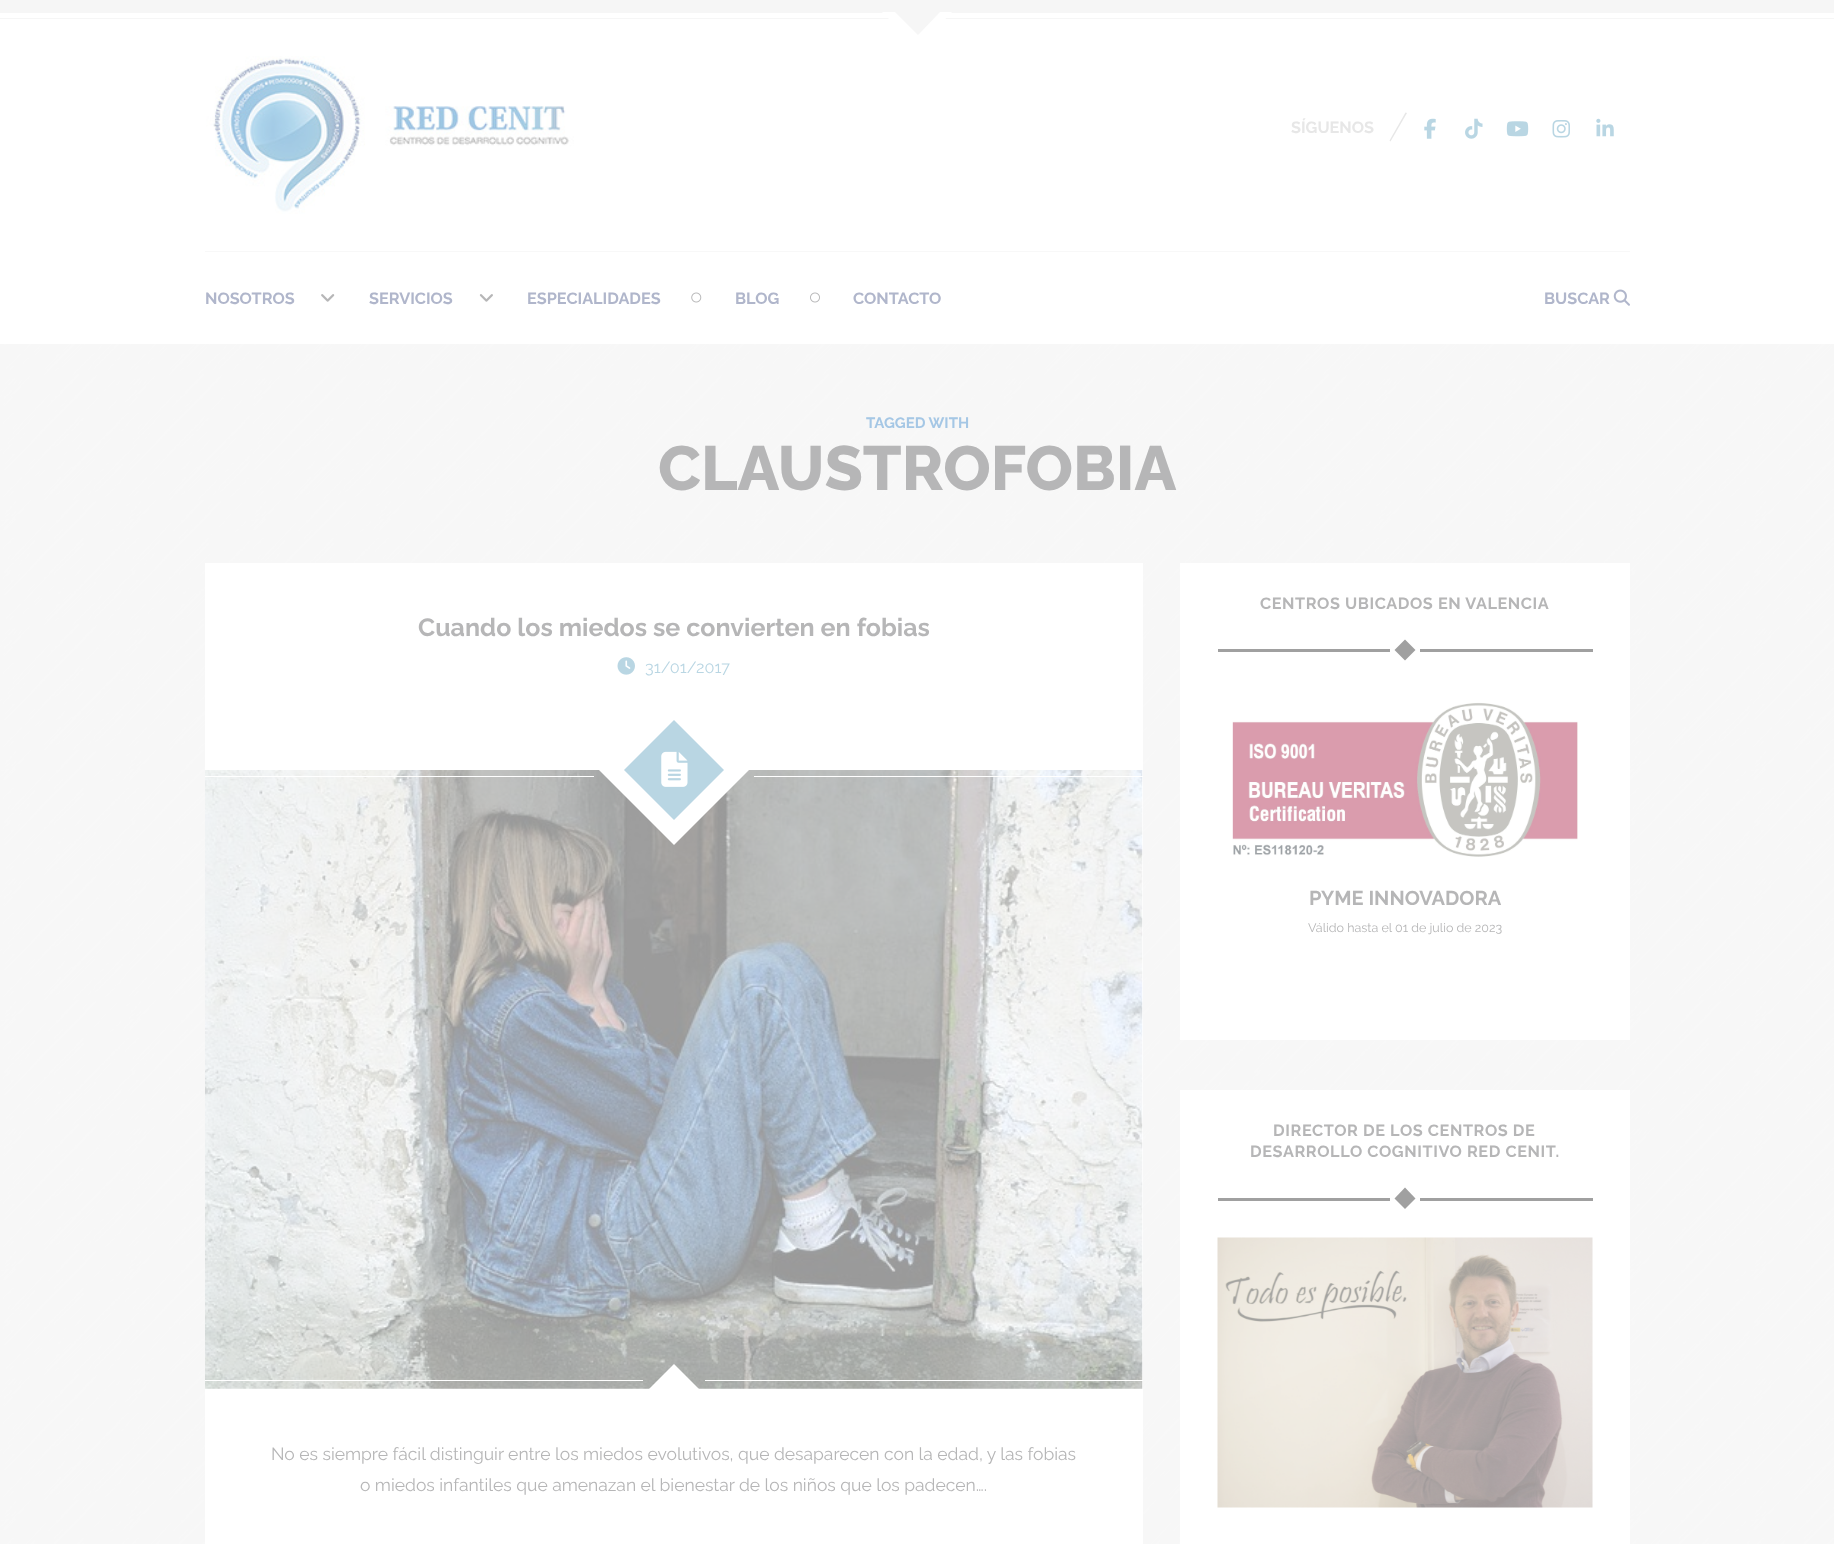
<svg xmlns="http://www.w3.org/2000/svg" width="1834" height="1544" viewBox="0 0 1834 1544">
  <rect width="100%" height="100%" fill="rgb(255,255,255)"/>
  <image x="0" y="344" width="1834" height="1200" href="pic1.png"/>
  <rect x="0" y="0" width="1834" height="13" fill="rgb(246,246,246)"/>
  <rect x="0" y="18" width="1834" height="1" fill="rgb(246,246,246)"/>
  <path d="M882 12H952L918 48Z" fill="rgb(255,255,255)"/>
  <path d="M895 12H940L918 35Z" fill="rgb(246,246,246)"/>
  <image x="206" y="56" width="368" height="158" href="pic2.png"/>
  <text x="1291" y="133" font-family="Raleway" font-size="16.25" font-weight="bold" fill="rgb(231,231,231)">SÍGUENOS</text>
  <path d="M1405.5 112.5L1407 113L1390.5 141.5L1389.5 140.5Z" fill="rgb(231,231,231)"/>
  <image x="1424" y="118" width="12" height="21" href="pic3.png"/>
  <image x="1465" y="118" width="18" height="21" href="pic4.png"/>
  <image x="1506" y="121" width="23" height="16" href="pic5.png"/>
  <image x="1552" y="120" width="18" height="18" href="pic6.png"/>
  <image x="1596" y="118" width="18" height="19" href="pic7.png"/>
  <rect x="205" y="251" width="1425" height="1" fill="rgb(248,248,248)"/>
  <text x="205" y="304" font-family="Raleway" font-size="16.25" font-weight="bold" fill="rgb(176,182,203)">NOSOTROS</text>
  <image x="321" y="294" width="14" height="8" href="pic8.png"/>
  <text x="369" y="304" font-family="Raleway" font-size="16.25" font-weight="bold" fill="rgb(176,182,203)">SERVICIOS</text>
  <image x="479" y="294" width="14" height="8" href="pic9.png"/>
  <text x="527" y="304" font-family="Raleway" font-size="16.25" font-weight="bold" fill="rgb(176,182,203)">ESPECIALIDADES</text>
  <image x="691" y="292" width="11" height="11" href="pic10.png"/>
  <text x="735" y="304" font-family="Raleway" font-size="16.25" font-weight="bold" fill="rgb(176,182,203)">BLOG</text>
  <image x="810" y="292" width="10" height="11" href="pic11.png"/>
  <g font-family="Raleway" font-size="16.25" font-weight="bold" fill="rgb(176,182,203)">
    <text x="853" y="304">CONTACTO</text>
    <text x="1544" y="304">BUSCAR</text>
  </g>
  <image x="1613" y="289" width="17" height="17" href="pic12.png"/>
  <text x="866" y="428" font-family="Raleway" font-size="15" font-weight="bold" fill="rgb(165,199,229)">TAGGED WITH</text>
  <text x="658" y="490" font-family="Raleway" font-size="62.5" font-weight="800" fill="rgb(182,182,183)">CLAUSTROFOBIA</text>
  <rect x="205" y="563" width="938" height="981" fill="rgb(255,255,255)"/>
  <text x="418" y="636" font-family="Raleway" font-size="25" font-weight="bold" fill="rgb(182,182,183)">Cuando los miedos se convierten en fobias</text>
  <image x="617" y="657" width="18" height="18" href="pic13.png"/>
  <text x="645" y="673" font-family="Raleway" font-size="16.25" fill="rgb(185,214,227)">31/01/2017</text>
  <path d="M724 770H624L674 720Z" fill="rgb(185,214,227)"/>
  <image x="205" y="770" width="938" height="619" href="pic15.png"/>
  <path d="M599 770H749L674 845Z" fill="rgb(255,255,255)"/>
  <path d="M624 770H724L674 820Z" fill="rgb(185,214,227)"/>
  <image x="661" y="751" width="27" height="36" href="pic14.png"/>
  <rect x="205" y="776" width="389" height="1" fill="rgb(255,255,255)"/>
  <rect x="754" y="776" width="389" height="1" fill="rgb(255,255,255)"/>
  <path d="M699 1389H649L674 1364Z" fill="rgb(255,255,255)"/>
  <rect x="205" y="1380" width="438" height="1" fill="rgb(255,255,255)"/>
  <rect x="705" y="1380" width="438" height="1" fill="rgb(255,255,255)"/>
  <g font-family="Raleway" font-size="17.5" fill="rgb(182,182,183)">
    <text x="271" y="1460">No es siempre fácil distinguir entre los miedos evolutivos, que desaparecen con la edad, y las fobias</text>
    <text x="360" y="1491">o miedos infantiles que amenazan el bienestar de los niños que los padecen….</text>
  </g>
  <rect x="1180" y="563" width="450" height="477" fill="rgb(255,255,255)"/>
  <rect x="1218" y="649" width="375" height="3" fill="rgb(160,160,160)"/>
  <text x="1260" y="609" font-family="Raleway" font-size="16.25" font-weight="bold" letter-spacing="0.6" fill="rgb(182,182,183)">CENTROS UBICADOS EN VALENCIA</text>
  <rect x="1390" y="649" width="30" height="3" fill="rgb(255,255,255)"/>
  <path d="M1405 639.5L1415.5 650L1405 660.5L1394.5 650Z" fill="rgb(160,160,160)"/>
  <image x="1232" y="702" width="346" height="155" href="pic16.png"/>
  <text x="1309" y="905" font-family="Raleway" font-size="20" font-weight="bold" fill="rgb(182,182,183)">PYME INNOVADORA</text>
  <text x="1308" y="932" font-family="Raleway" font-size="12.5" fill="rgb(182,182,183)">Válido hasta el 01 de julio de 2023</text>
  <rect x="1180" y="1090" width="450" height="454" fill="rgb(255,255,255)"/>
  <rect x="1218" y="1198" width="375" height="3" fill="rgb(160,160,160)"/>
  <g font-family="Raleway" font-size="16.25" font-weight="bold" letter-spacing="0.6" fill="rgb(182,182,183)">
    <text x="1273" y="1136">DIRECTOR DE LOS CENTROS DE</text>
    <text x="1250" y="1157">DESARROLLO COGNITIVO RED CENIT.</text>
  </g>
  <rect x="1390" y="1198" width="30" height="3" fill="rgb(255,255,255)"/>
  <path d="M1405 1187.5L1415.5 1198.5L1405 1209L1394.5 1198.5Z" fill="rgb(160,160,160)"/>
  <image x="1217" y="1237" width="376" height="271" href="pic17.png"/>
</svg>
